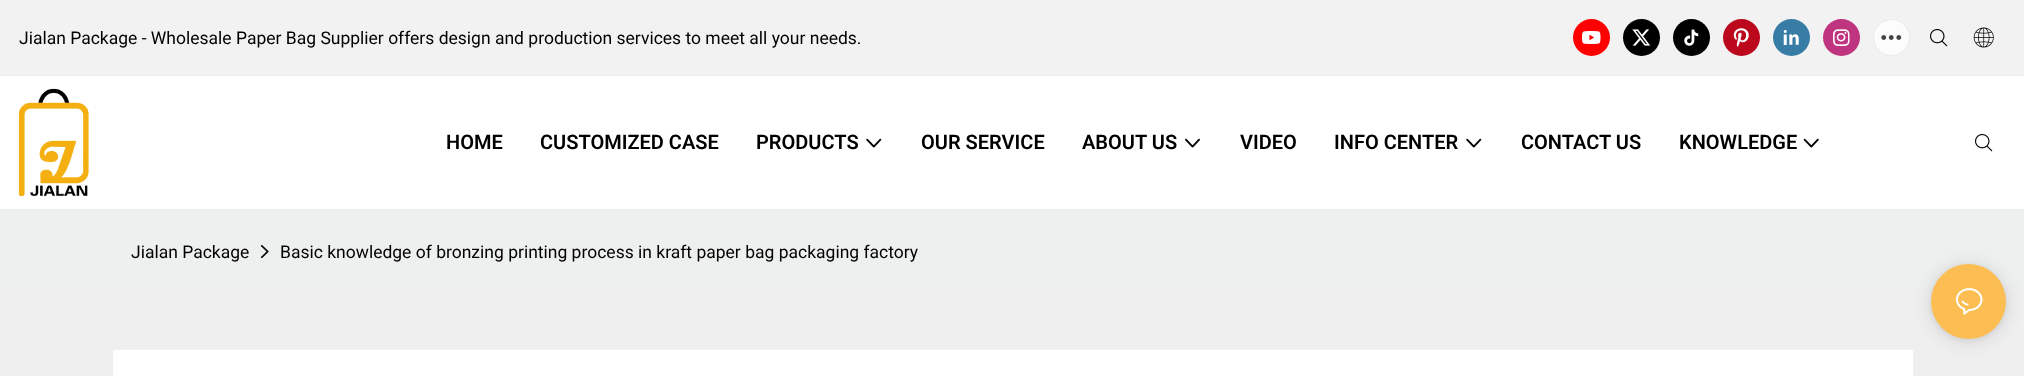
<svg xmlns="http://www.w3.org/2000/svg" width="2024" height="376" viewBox="0 0 2024 376">
  <rect width="100%" height="100%" fill="rgb(255,255,255)"/>
  <rect x="0" y="0" width="2024" height="75" fill="rgb(242,242,242)"/>
  <rect x="0" y="75" width="2024" height="1" fill="rgb(238,238,238)"/>
  <text x="19" y="44" font-family="Roboto" font-size="17.5" fill="rgb(0,0,0)">Jialan Package - Wholesale Paper Bag Supplier offers design and production services to meet all your needs.</text>
  <circle cx="1591.5" cy="37.5" r="18.5" fill="rgb(255,0,0)"/>
  <image x="1582" y="31" width="19" height="13" href="pic1.png"/>
  <circle cx="1641.5" cy="37.5" r="18.5" fill="rgb(0,0,0)"/>
  <image x="1632" y="29" width="19" height="17" href="pic2.png"/>
  <circle cx="1691.5" cy="37.5" r="18.5" fill="rgb(1,1,1)"/>
  <image x="1684" y="29" width="15" height="17" href="pic3.png"/>
  <circle cx="1741.5" cy="37.5" r="18.5" fill="rgb(188,8,28)"/>
  <image x="1733" y="28" width="16" height="19" href="pic4.png"/>
  <circle cx="1791.5" cy="37.5" r="18.5" fill="rgb(55,124,165)"/>
  <image x="1783" y="30" width="16" height="15" href="pic5.png"/>
  <circle cx="1841.5" cy="37.5" r="18.5" fill="rgb(190,52,127)"/>
  <image x="1833" y="29" width="17" height="17" href="pic6.png"/>
  <circle cx="1891.5" cy="37.5" r="18" fill="rgb(252,252,252)" stroke="rgb(235,235,235)"/>
  <image x="1881" y="35" width="21" height="5" href="pic7.png"/>
  <image x="1930" y="29" width="18" height="18" href="pic8.png"/>
  <image x="1973" y="27" width="21" height="21" href="pic9.png"/>
  <image x="18" y="88" width="71" height="109" href="pic10.png"/>
  <g font-family="Roboto" font-size="20" font-weight="600" fill="rgb(0,0,0)">
    <text x="446" y="149">HOME</text>
    <text x="540" y="149">CUSTOMIZED CASE</text>
    <text x="756" y="149">PRODUCTS</text>
  </g>
  <image x="866" y="138" width="16" height="10" href="pic11.png"/>
  <g font-family="Roboto" font-size="20" font-weight="600" fill="rgb(0,0,0)">
    <text x="921" y="149">OUR SERVICE</text>
    <text x="1082" y="149">ABOUT US</text>
  </g>
  <image x="1185" y="138" width="15" height="10" href="pic12.png"/>
  <g font-family="Roboto" font-size="20" font-weight="600" fill="rgb(0,0,0)">
    <text x="1240" y="149">VIDEO</text>
    <text x="1334" y="149">INFO CENTER</text>
  </g>
  <image x="1466" y="138" width="16" height="10" href="pic11.png"/>
  <g font-family="Roboto" font-size="20" font-weight="600" fill="rgb(0,0,0)">
    <text x="1521" y="149">CONTACT US</text>
    <text x="1679" y="149">KNOWLEDGE</text>
  </g>
  <image x="1803" y="138" width="16" height="10" href="pic13.png"/>
  <image x="1975" y="134" width="18" height="18" href="pic14.png"/>
  <rect x="0" y="209" width="2024" height="80" fill="rgb(238,239,239)"/>
  <text x="131" y="258" font-family="Roboto" font-size="17.5" fill="rgb(0,0,0)">Jialan Package</text>
  <image x="260" y="245" width="9" height="14" href="pic15.png"/>
  <text x="280" y="258" font-family="Roboto" font-size="17.5" fill="rgb(0,0,0)">Basic knowledge of bronzing printing process in kraft paper bag packaging factory</text>
  <rect x="0" y="289" width="2024" height="87" fill="rgb(239,239,239)"/>
  <rect x="113" y="350" width="1800" height="26" fill="rgb(255,255,255)"/>
  <rect x="1931" y="266" width="75" height="75" rx="37.5" fill="rgba(0,0,0,0.12)" filter="blur(10px)"/>
  <rect x="1931" y="265" width="75" height="75" rx="37.5" fill="rgba(0,0,0,0.06)" filter="blur(2.5px)"/>
  <circle cx="1968.5" cy="301.5" r="37.5" fill="rgb(252,190,83)"/>
  <image x="1955" y="288" width="28" height="27" href="pic16.png"/>
</svg>
